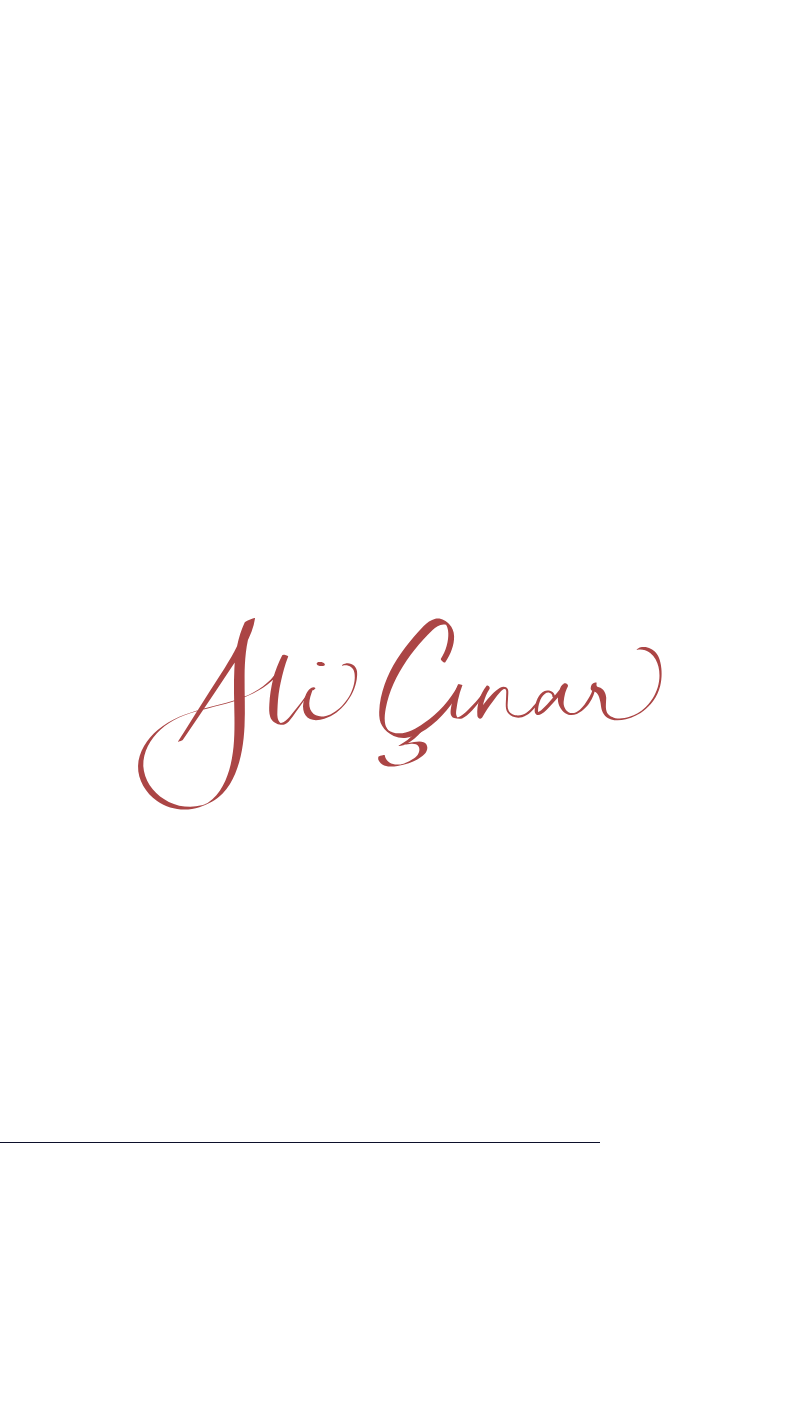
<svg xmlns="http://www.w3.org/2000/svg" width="800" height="1427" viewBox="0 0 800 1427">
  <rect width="100%" height="100%" fill="rgb(255,255,255)"/>
  <image x="138" y="618" width="524" height="192" href="pic1.png"/>
  <rect x="0" y="1142" width="600" height="1" fill="rgb(12,16,43)"/>
</svg>
